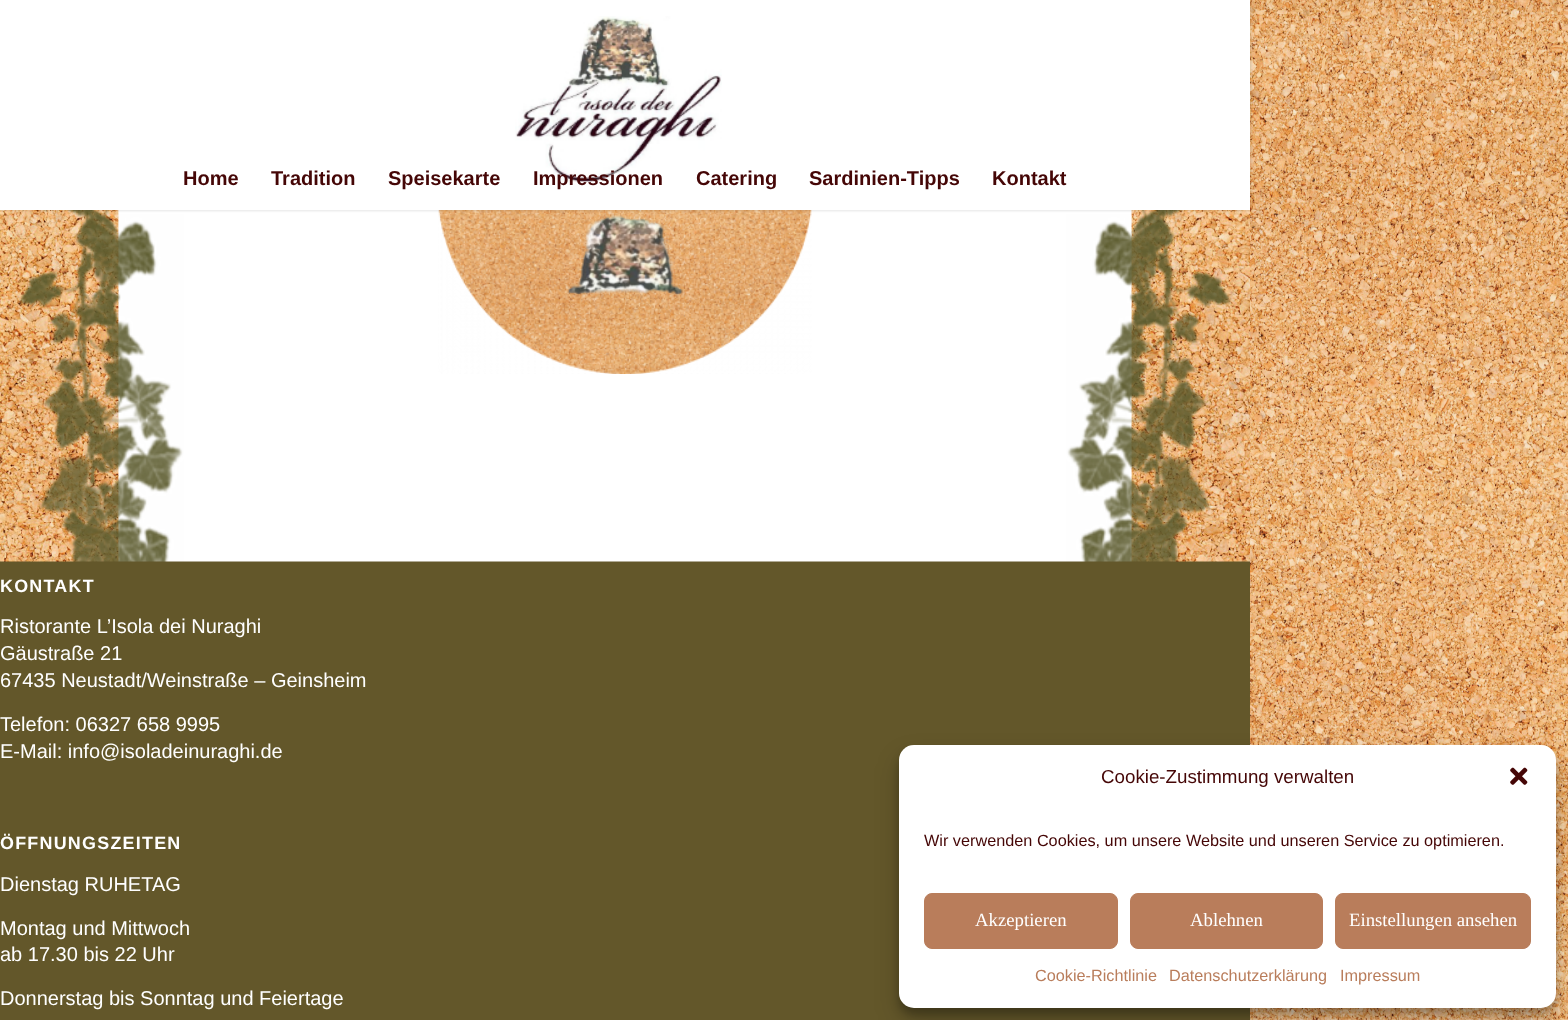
<svg xmlns="http://www.w3.org/2000/svg" width="1568" height="1020" viewBox="0 0 1568 1020">
  <rect width="100%" height="100%" fill="rgb(255,255,255)"/>
  <rect x="0" y="561" width="1250" height="459" fill="rgb(99,87,42)"/>
  <image x="0" y="210" width="1250" height="352" href="pic2.png"/>
  <image x="438" y="210" width="374" height="164" href="pic3.png"/>
  <image x="1250" y="0" width="318" height="1020" href="pic4.png"/>
  <rect x="-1" y="-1" width="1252" height="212" fill="rgba(0,0,0,0.1)" filter="blur(1px)"/>
  <rect x="0" y="0" width="1250" height="210" fill="rgb(255,255,255)"/>
  <image x="515" y="16" width="207" height="166" href="pic1.png"/>
  <g font-family="Liberation Sans" font-size="20" font-weight="bold" fill="rgb(69,6,6)">
    <text x="183" y="185">Home</text>
    <text x="271" y="185">Tradition</text>
    <text x="388" y="185">Speisekarte</text>
    <text x="533" y="185">Impressionen</text>
    <text x="696" y="185">Catering</text>
    <text x="809" y="185">Sardinien-Tipps</text>
    <text x="992" y="185">Kontakt</text>
  </g>
  <text x="0" y="592" font-family="Liberation Sans" font-size="17.9" font-weight="bold" letter-spacing="1.25" fill="rgb(255,255,255)">KONTAKT</text>
  <g font-family="Liberation Sans" font-size="20" fill="rgb(255,255,255)">
    <text>
      <tspan x="0" y="633">Ristorante L’Isola dei Nuraghi</tspan>
      <tspan x="0" y="660">Gäustraße 21</tspan>
      <tspan x="0" y="687">67435 Neustadt/Weinstraße – Geinsheim</tspan>
    </text>
    <text>
      <tspan x="0" y="731">Telefon: 06327 658 9995</tspan>
      <tspan x="0" y="758">E-Mail: info@isoladeinuraghi.de</tspan>
    </text>
  </g>
  <text x="0" y="849" font-family="Liberation Sans" font-size="17.9" font-weight="bold" letter-spacing="1.25" fill="rgb(255,255,255)">ÖFFNUNGSZEITEN</text>
  <g font-family="Liberation Sans" font-size="20" fill="rgb(255,255,255)">
    <text x="0" y="891">Dienstag RUHETAG</text>
    <text>
      <tspan x="0" y="935">Montag und Mittwoch</tspan>
      <tspan x="0" y="961">ab 17.30 bis 22 Uhr</tspan>
    </text>
    <text x="0" y="1005">Donnerstag bis Sonntag und Feiertage</text>
  </g>
  <rect x="899" y="753" width="657" height="262" rx="15" fill="rgba(0,0,0,0.23)" filter="blur(4px)"/>
  <rect x="899" y="758" width="657" height="262" rx="15" fill="rgba(0,0,0,0.19)" filter="blur(12.5px)"/>
  <rect x="899" y="745" width="657" height="263" rx="15" fill="rgb(255,255,255)"/>
  <text x="1101" y="783" font-family="Liberation Sans" font-size="18.75" fill="rgb(69,6,6)">Cookie-Zustimmung verwalten</text>
  <image x="1510" y="767" width="18" height="18" href="pic5.png"/>
  <text x="924" y="846" font-family="Liberation Sans" font-size="16.25" fill="rgb(69,6,6)">Wir verwenden Cookies, um unsere Website und unseren Service zu optimieren.</text>
  <rect x="924.5" y="893.5" width="193" height="55" rx="7.5" fill="rgb(185,125,91)" stroke="rgb(185,125,91)"/>
  <text x="975" y="926" font-family="Liberation Serif" font-size="18.75" fill="rgb(255,255,255)">Akzeptieren</text>
  <rect x="1130.5" y="893.5" width="192" height="55" rx="7.5" fill="rgb(185,125,91)" stroke="rgb(185,125,91)"/>
  <text x="1190" y="926" font-family="Liberation Serif" font-size="18.75" fill="rgb(255,255,255)">Ablehnen</text>
  <rect x="1335.5" y="893.5" width="195" height="55" rx="7.5" fill="rgb(185,125,91)" stroke="rgb(185,125,91)"/>
  <text x="1349" y="926" font-family="Liberation Serif" font-size="18.75" fill="rgb(255,255,255)">Einstellungen ansehen</text>
  <g font-family="Liberation Sans" font-size="16.25" fill="rgb(185,125,91)">
    <text x="1035" y="981">Cookie-Richtlinie</text>
    <text x="1169" y="981">Datenschutzerklärung</text>
    <text x="1340" y="981">Impressum</text>
  </g>
</svg>
